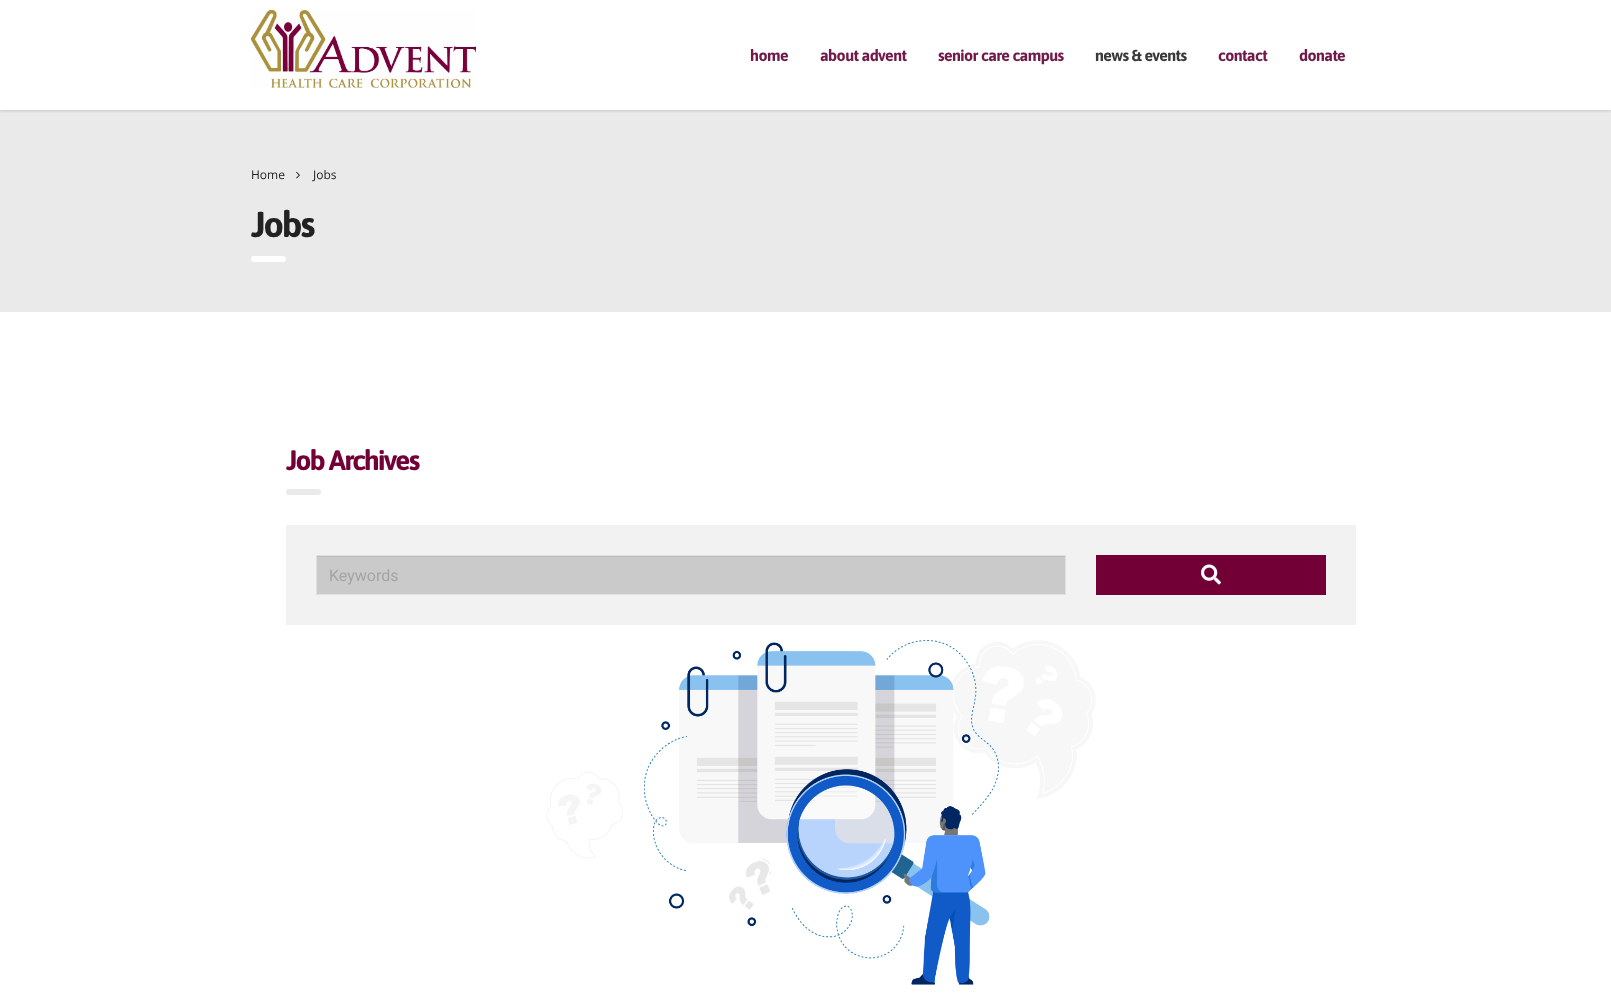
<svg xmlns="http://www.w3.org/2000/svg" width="1611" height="1000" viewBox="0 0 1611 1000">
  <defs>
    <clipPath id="clip1"><rect x="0" y="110" width="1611" height="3"/></clipPath>
  </defs>
  <rect width="100%" height="100%" fill="rgb(255,255,255)"/>
  <rect x="0" y="110" width="1611" height="202" fill="rgb(234,234,234)"/>
  <g clip-path="url(#clip1)">
    <rect x="0" y="1" width="1611" height="110" fill="rgba(0,0,0,0.15)" filter="blur(1.5px)"/>
  </g>
  <image x="251" y="10" width="225" height="78" href="pic1.png"/>
  <g font-family="Asap" font-size="16" font-weight="bold" letter-spacing="-0.6" fill="rgb(113,27,74)">
    <text x="750" y="61">home</text>
    <text x="820" y="61">about advent</text>
    <text x="938" y="61">senior care campus</text>
  </g>
  <text x="1095" y="61" font-family="Asap" font-size="16" font-weight="bold" letter-spacing="-0.6" fill="rgb(58,58,58)">news &amp; events</text>
  <g font-family="Asap" font-size="16" font-weight="bold" letter-spacing="-0.6" fill="rgb(113,27,74)">
    <text x="1218" y="61">contact</text>
    <text x="1299" y="61">donate</text>
  </g>
  <text x="251" y="179" font-family="Open Sans" font-size="12" fill="rgb(34,34,34)">Home</text>
  <image x="296" y="171" width="4" height="8" href="pic2.png"/>
  <text x="313" y="179" font-family="Open Sans" font-size="12" fill="rgb(34,34,34)">Jobs</text>
  <text x="251" y="237" font-family="Asap" font-size="36" font-weight="bold" letter-spacing="-2" fill="rgb(34,34,34)">Jobs</text>
  <rect x="251" y="256" width="35" height="6" rx="3" fill="rgb(255,255,255)"/>
  <text x="286" y="470" font-family="Asap" font-size="28" font-weight="bold" letter-spacing="-1.75" fill="rgb(114,0,55)">Job Archives</text>
  <rect x="286" y="489" width="35" height="6" rx="3" fill="rgb(234,234,234)"/>
  <rect x="286" y="525" width="1070" height="100" fill="rgb(242,242,242)"/>
  <rect x="317" y="557" width="748" height="37" fill="rgb(202,202,202)"/>
  <rect x="317" y="556" width="748" height="1" fill="rgb(187,187,187)"/>
  <rect x="316.5" y="555.5" width="749" height="39" fill="none" stroke="rgb(225,225,225)"/>
  <text x="329" y="581" font-family="Roboto" font-size="16" fill="rgb(164,164,164)">Keywords</text>
  <rect x="1096" y="555" width="230" height="40" fill="rgb(114,0,55)"/>
  <image x="1201" y="564" width="20" height="21" href="pic3.png"/>
  <image x="546" y="640" width="550" height="345" href="pic4.png"/>
</svg>
